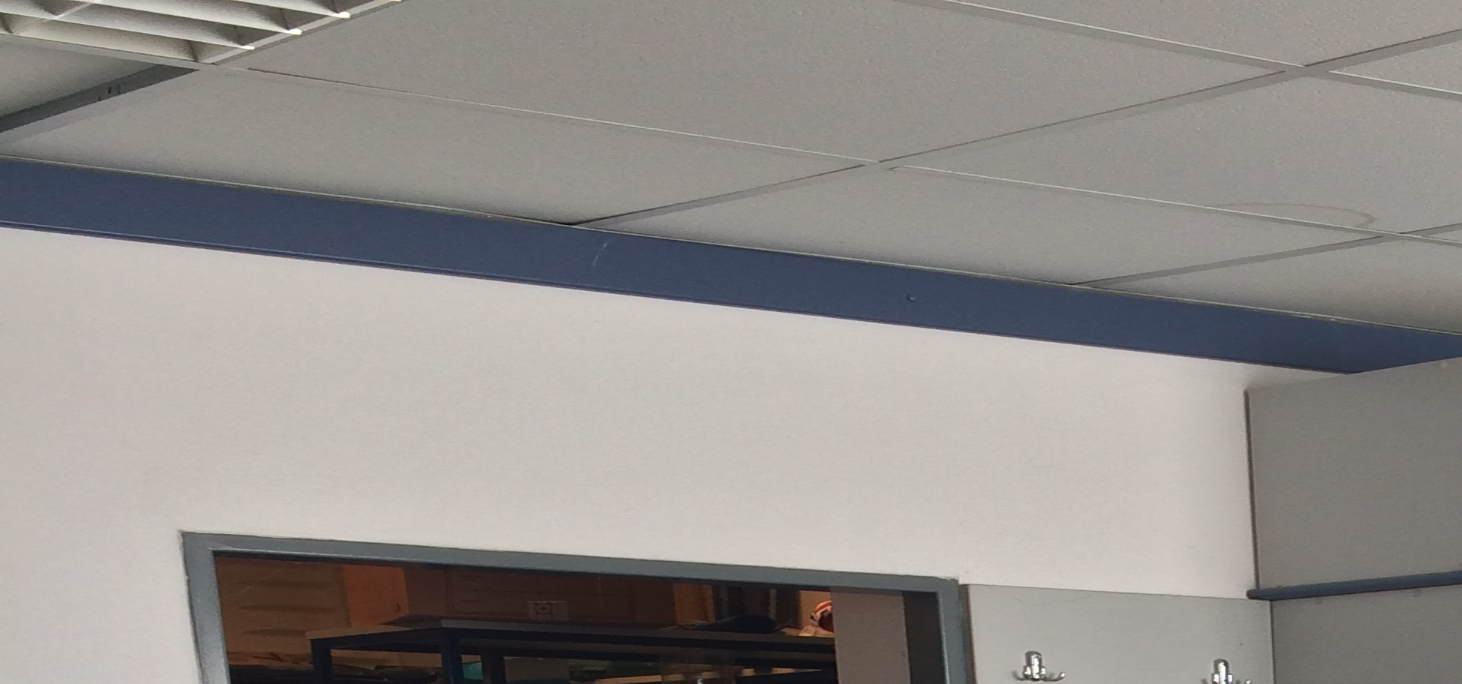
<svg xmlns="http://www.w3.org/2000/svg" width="1462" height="684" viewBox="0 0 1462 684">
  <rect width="100%" height="100%" fill="rgb(255,255,255)"/>
  <image x="0" y="0" width="1462" height="684" href="pic1.png"/>
</svg>
